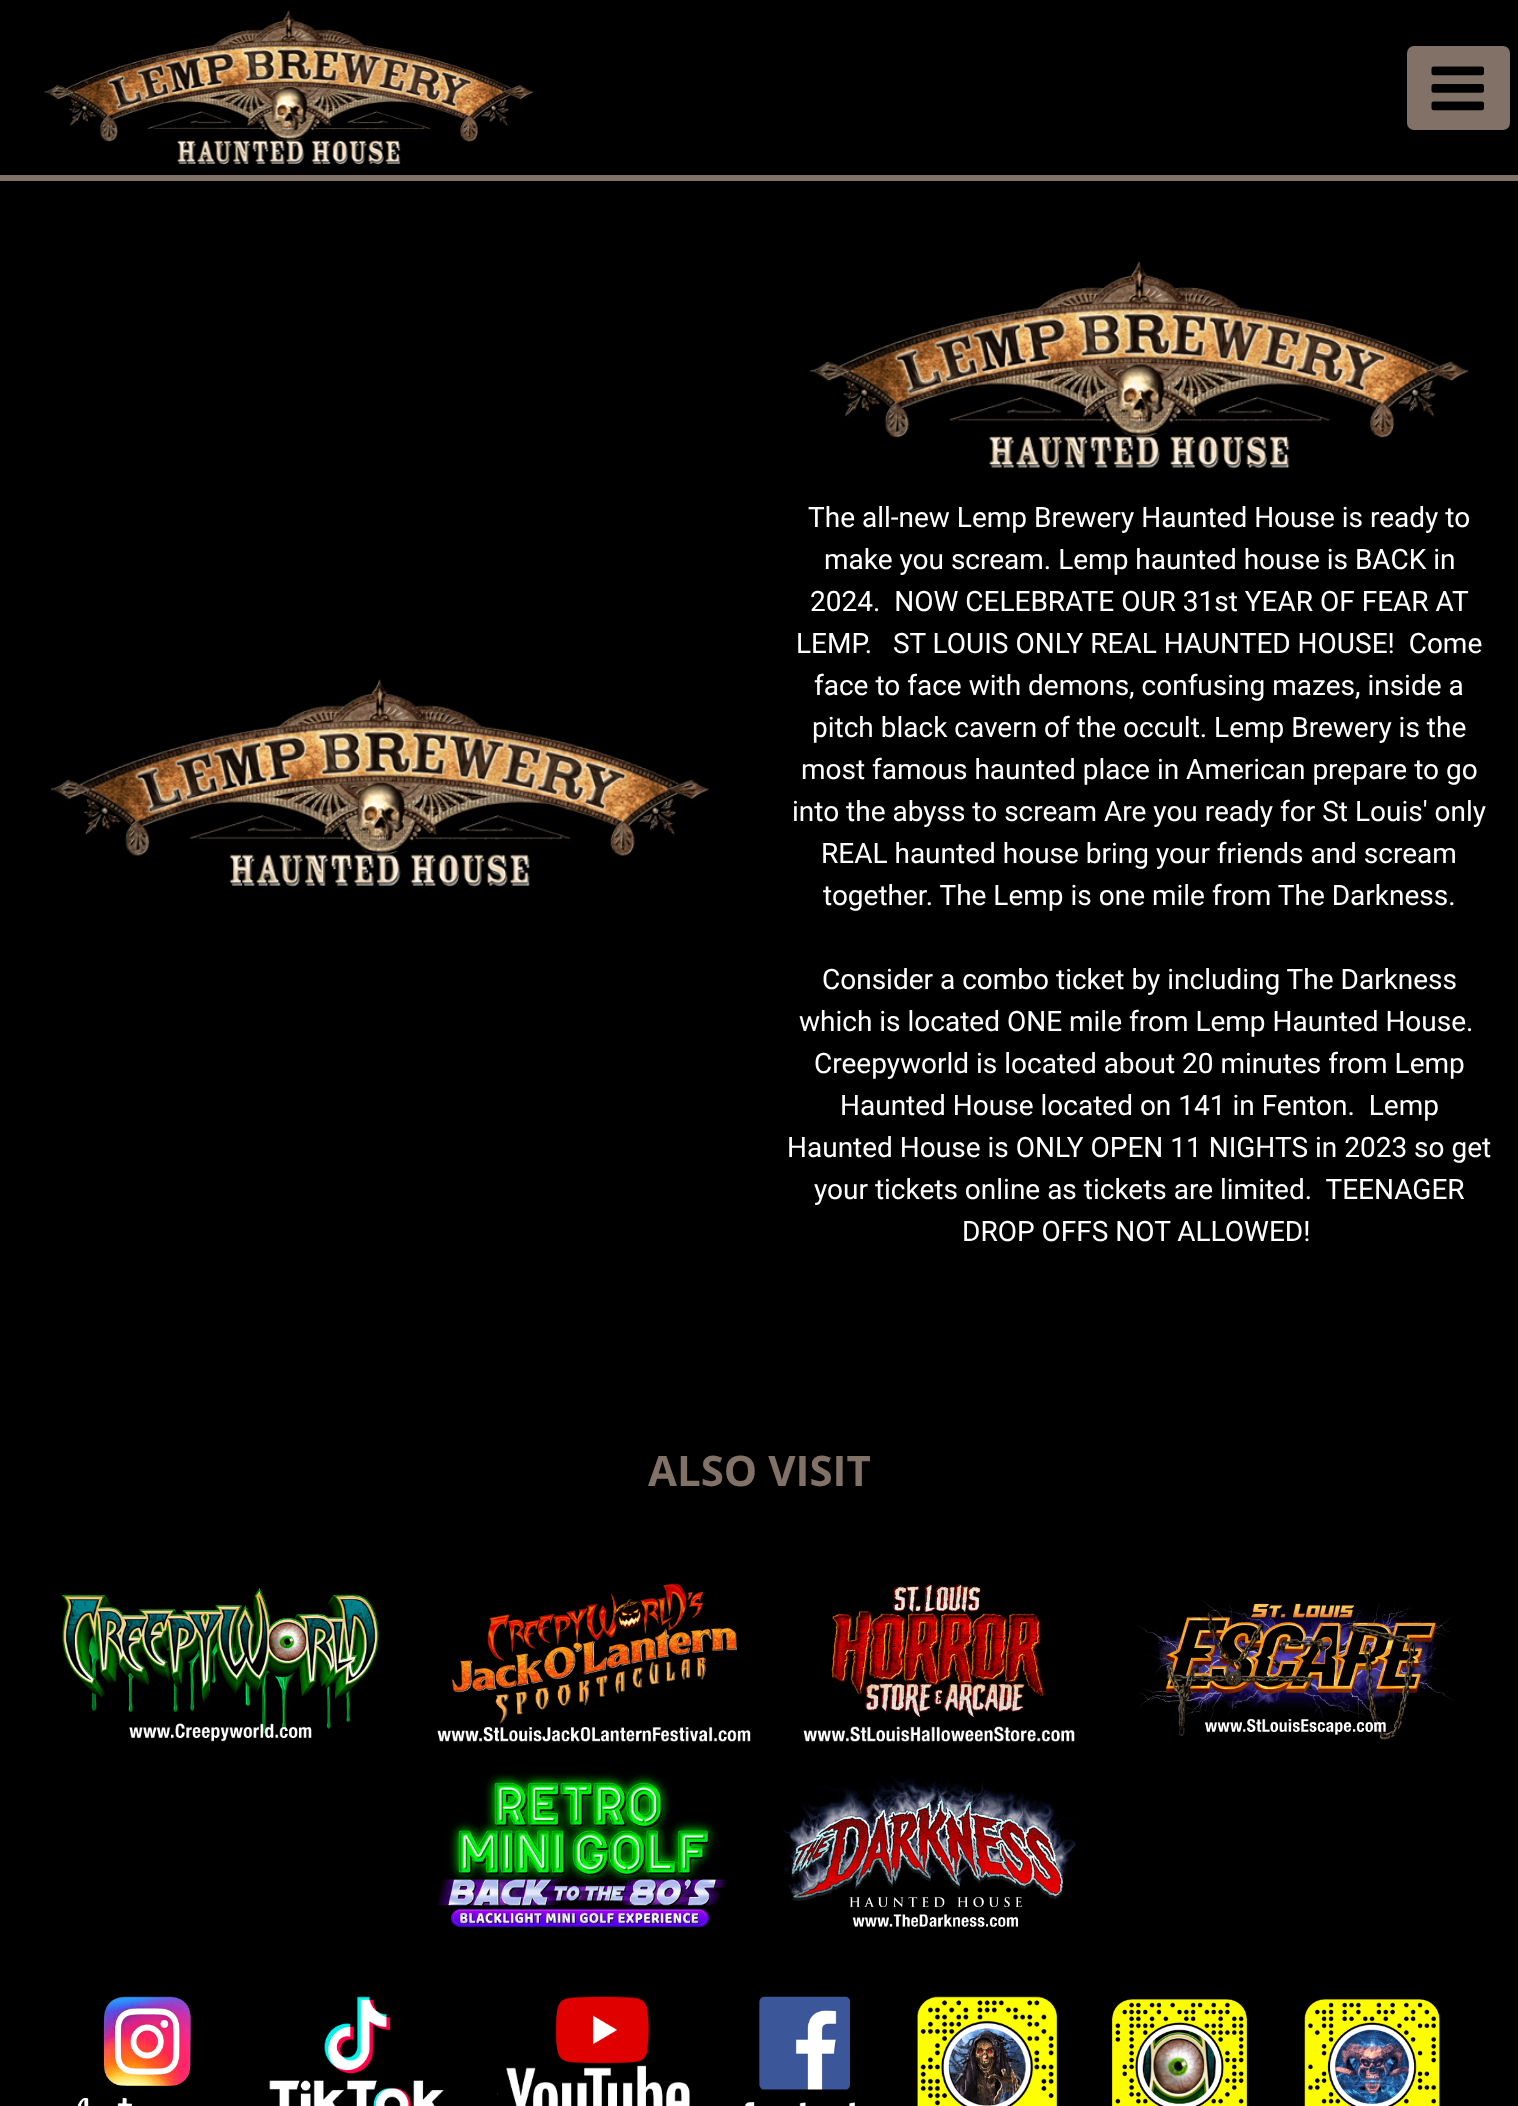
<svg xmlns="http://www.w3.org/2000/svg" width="1518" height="2106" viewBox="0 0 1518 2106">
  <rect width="100%" height="100%" fill="rgb(0,0,0)"/>
  <image x="44" y="10" width="489" height="155" href="pic1.png"/>
  <rect x="1407" y="46" width="103" height="84" rx="7" fill="rgb(130,113,102)"/>
  <image x="1431" y="66" width="53" height="45" href="pic2.png"/>
  <rect x="0" y="175" width="1518" height="6" fill="rgb(130,113,102)"/>
  <image x="51" y="679" width="658" height="208" href="pic3.png"/>
  <image x="810" y="261" width="659" height="208" href="pic4.png"/>
  <g font-family="Roboto" font-size="28" fill="rgb(255,255,255)">
    <text x="808" y="527">The all-new Lemp Brewery Haunted House is ready to</text>
    <text x="824" y="569">make you scream. Lemp haunted house is BACK in</text>
    <text x="810" y="611" xml:space="preserve">2024.  NOW CELEBRATE OUR 31st YEAR OF FEAR AT</text>
    <text x="796" y="653" xml:space="preserve">LEMP.   ST LOUIS ONLY REAL HAUNTED HOUSE!  Come</text>
    <text x="814" y="695">face to face with demons, confusing mazes, inside a</text>
    <text x="812" y="737">pitch black cavern of the occult. Lemp Brewery is the</text>
    <text x="801" y="779">most famous haunted place in American prepare to go</text>
    <text x="792" y="821">into the abyss to scream Are you ready for St Louis' only</text>
    <text x="821" y="863">REAL haunted house bring your friends and scream</text>
    <text x="823" y="905">together. The Lemp is one mile from The Darkness.</text>
    <text x="822" y="989">Consider a combo ticket by including The Darkness</text>
    <text x="799" y="1031">which is located ONE mile from Lemp Haunted House.</text>
    <text x="814" y="1073">Creepyworld is located about 20 minutes from Lemp</text>
    <text x="840" y="1115" xml:space="preserve">Haunted House located on 141 in Fenton.  Lemp</text>
    <text x="787" y="1157">Haunted House is ONLY OPEN 11 NIGHTS in 2023 so get</text>
    <text x="814" y="1199" xml:space="preserve">your tickets online as tickets are limited.  TEENAGER</text>
    <text x="962" y="1241">DROP OFFS NOT ALLOWED!</text>
  </g>
  <text x="648" y="1486" font-family="Open Sans" font-size="42" font-weight="bold" fill="rgb(130,113,102)">ALSO VISIT</text>
  <image x="61" y="1588" width="319" height="154" href="pic5.png"/>
  <image x="437" y="1583" width="314" height="159" href="pic6.png"/>
  <image x="803" y="1583" width="272" height="159" href="pic7.png"/>
  <image x="1135" y="1599" width="320" height="141" href="pic8.png"/>
  <image x="437" y="1773" width="290" height="154" href="pic9.png"/>
  <image x="783" y="1776" width="295" height="151" href="pic10.png"/>
  <image x="77" y="1996" width="114" height="110" href="pic11.png"/>
  <image x="269" y="1996" width="175" height="110" href="pic12.png"/>
  <image x="497" y="1996" width="193" height="110" href="pic13.png"/>
  <image x="744" y="1996" width="111" height="110" href="pic14.png"/>
  <image x="917" y="1996" width="140" height="110" href="pic15.png"/>
  <image x="1110" y="1997" width="139" height="109" href="pic16.png"/>
  <image x="1302" y="1998" width="140" height="108" href="pic17.png"/>
</svg>
